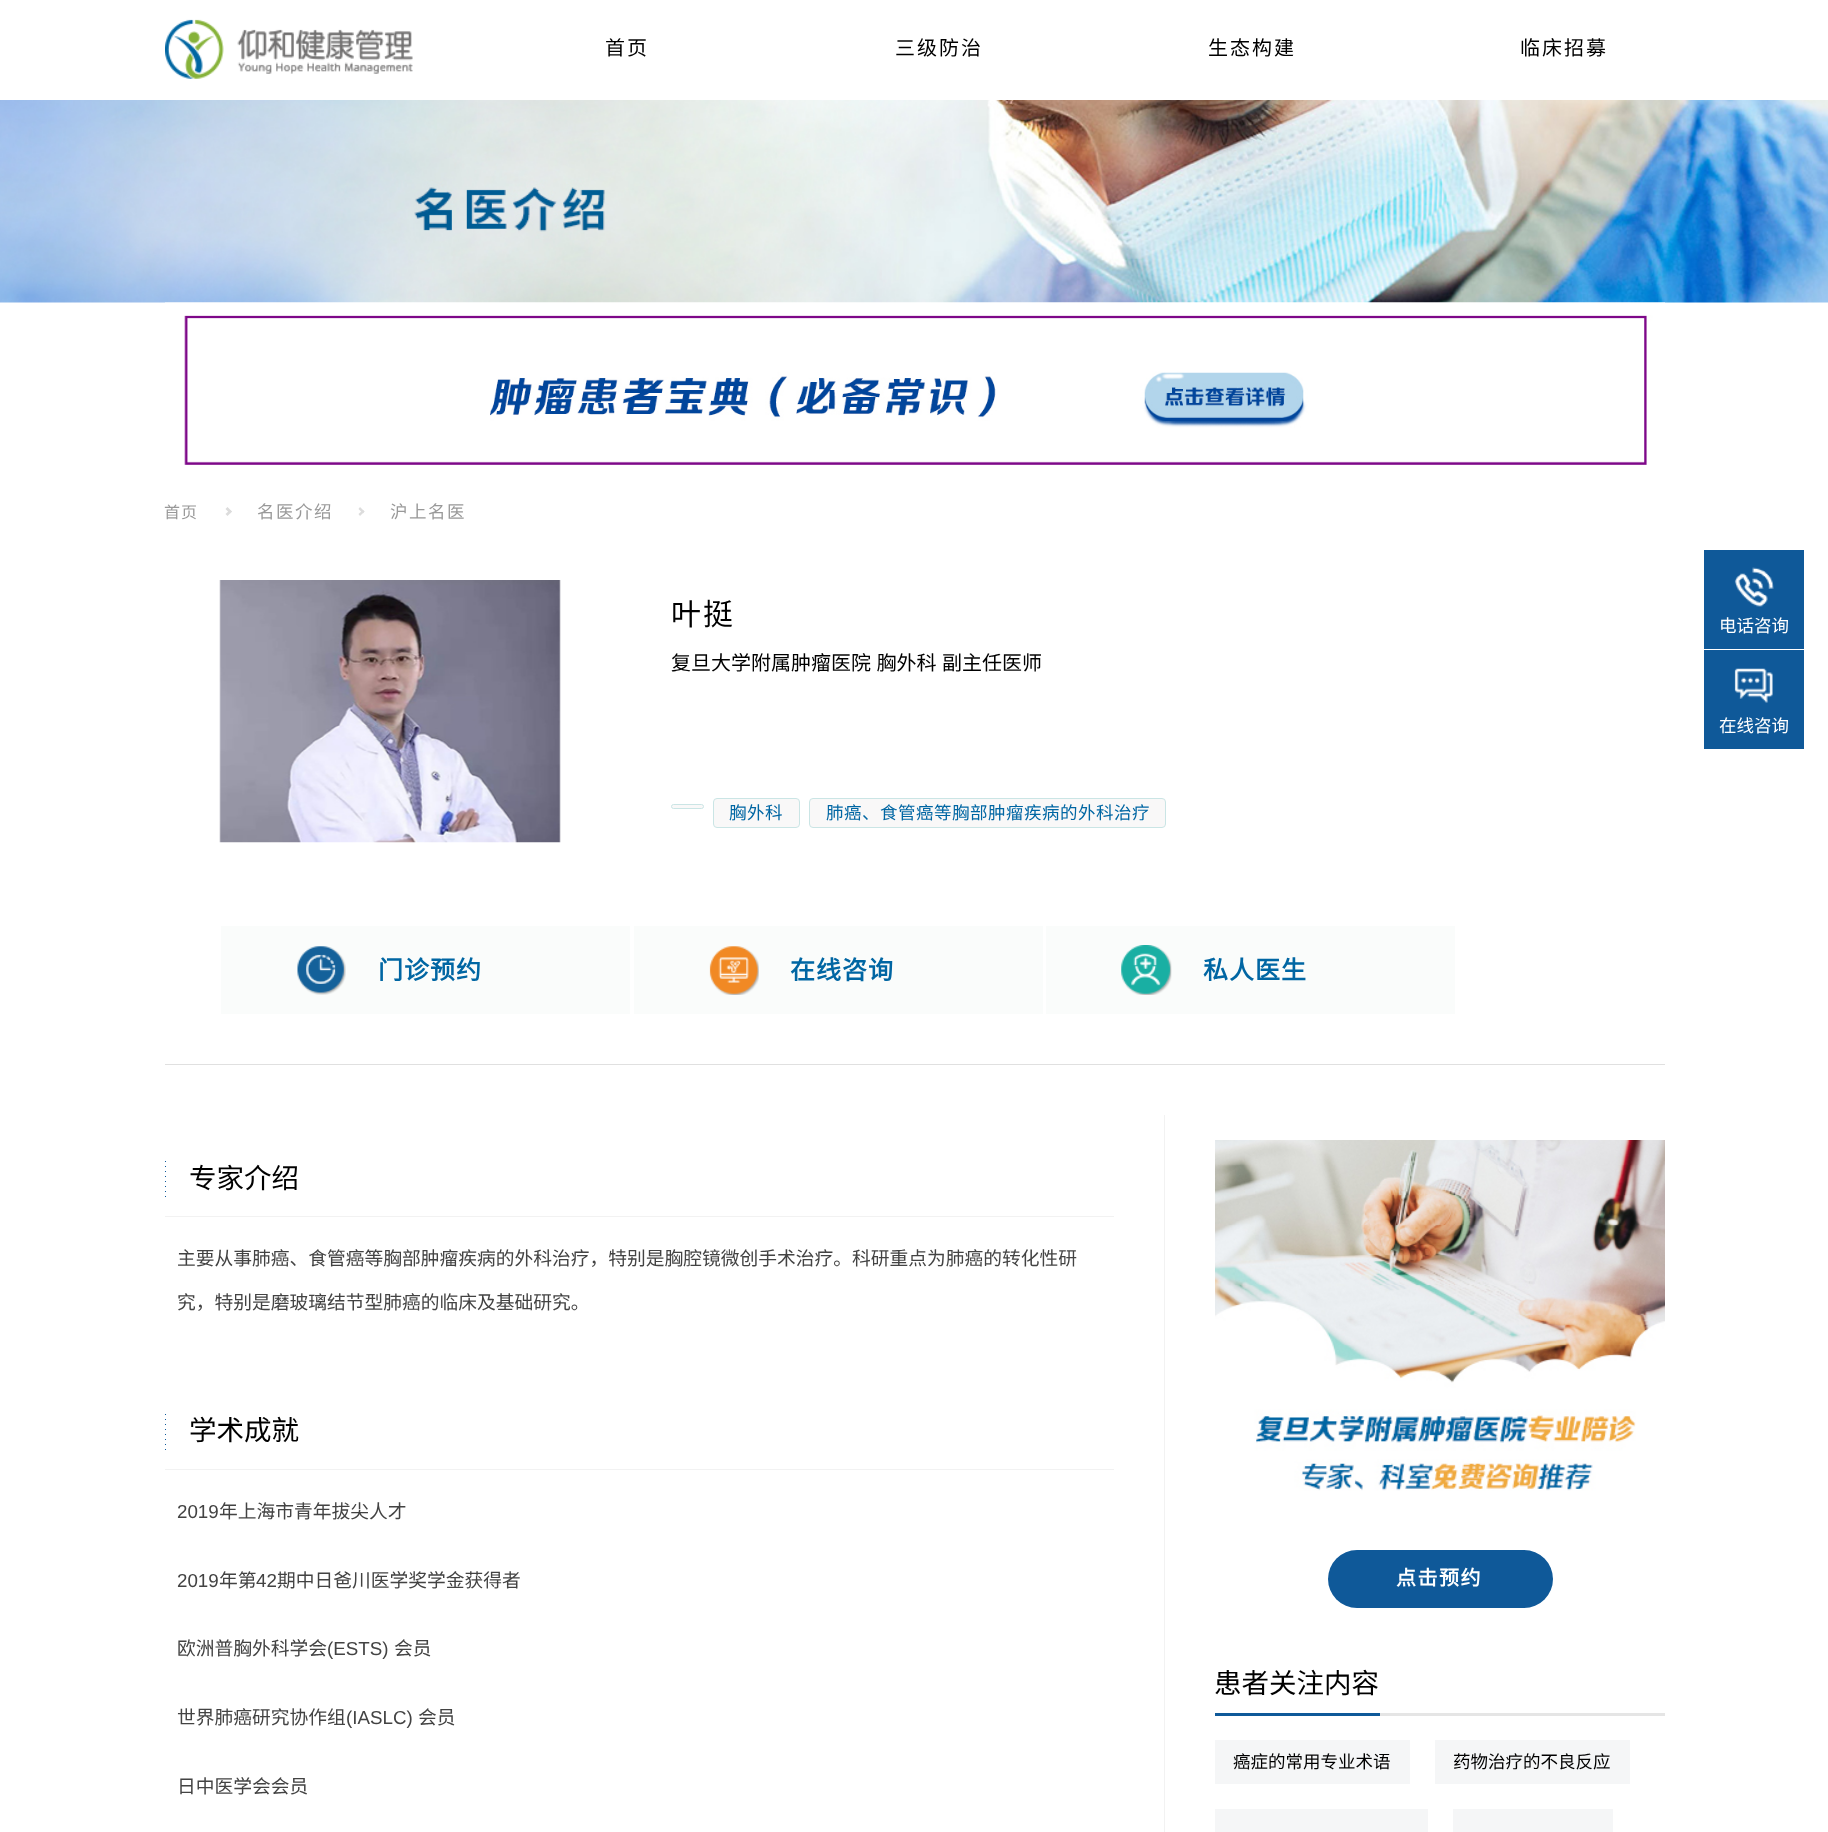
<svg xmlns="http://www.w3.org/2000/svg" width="1828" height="1832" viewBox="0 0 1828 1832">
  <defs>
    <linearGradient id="g1" gradientUnits="userSpaceOnUse" x1="166" y1="1161" x2="166" y2="1166"><stop offset="0" stop-color="rgb(15,89,153)"/><stop offset="0.25" stop-color="rgb(15,89,153)"/><stop offset="0.25" stop-color="rgb(255,255,255)"/><stop offset="1" stop-color="rgb(255,255,255)"/></linearGradient>
    <linearGradient id="g2" gradientUnits="userSpaceOnUse" x1="166" y1="1166" x2="166" y2="1171"><stop offset="0" stop-color="rgb(15,89,153)"/><stop offset="0.25" stop-color="rgb(15,89,153)"/><stop offset="0.25" stop-color="rgb(255,255,255)"/><stop offset="1" stop-color="rgb(255,255,255)"/></linearGradient>
    <linearGradient id="g3" gradientUnits="userSpaceOnUse" x1="166" y1="1171" x2="166" y2="1176"><stop offset="0" stop-color="rgb(15,89,153)"/><stop offset="0.25" stop-color="rgb(15,89,153)"/><stop offset="0.25" stop-color="rgb(255,255,255)"/><stop offset="1" stop-color="rgb(255,255,255)"/></linearGradient>
    <linearGradient id="g4" gradientUnits="userSpaceOnUse" x1="166" y1="1176" x2="166" y2="1181"><stop offset="0" stop-color="rgb(15,89,153)"/><stop offset="0.25" stop-color="rgb(15,89,153)"/><stop offset="0.25" stop-color="rgb(255,255,255)"/><stop offset="1" stop-color="rgb(255,255,255)"/></linearGradient>
    <linearGradient id="g5" gradientUnits="userSpaceOnUse" x1="166" y1="1181" x2="166" y2="1186"><stop offset="0" stop-color="rgb(15,89,153)"/><stop offset="0.25" stop-color="rgb(15,89,153)"/><stop offset="0.25" stop-color="rgb(255,255,255)"/><stop offset="1" stop-color="rgb(255,255,255)"/></linearGradient>
    <linearGradient id="g6" gradientUnits="userSpaceOnUse" x1="166" y1="1186" x2="166" y2="1191"><stop offset="0" stop-color="rgb(15,89,153)"/><stop offset="0.25" stop-color="rgb(15,89,153)"/><stop offset="0.25" stop-color="rgb(255,255,255)"/><stop offset="1" stop-color="rgb(255,255,255)"/></linearGradient>
    <linearGradient id="g7" gradientUnits="userSpaceOnUse" x1="166" y1="1191" x2="166" y2="1196"><stop offset="0" stop-color="rgb(15,89,153)"/><stop offset="0.25" stop-color="rgb(15,89,153)"/><stop offset="0.25" stop-color="rgb(255,255,255)"/><stop offset="1" stop-color="rgb(255,255,255)"/></linearGradient>
    <linearGradient id="g8" gradientUnits="userSpaceOnUse" x1="166" y1="1196" x2="166" y2="1201"><stop offset="0" stop-color="rgb(15,89,153)"/><stop offset="0.25" stop-color="rgb(15,89,153)"/><stop offset="0.25" stop-color="rgb(255,255,255)"/><stop offset="1" stop-color="rgb(255,255,255)"/></linearGradient>
    <linearGradient id="g9" gradientUnits="userSpaceOnUse" x1="166" y1="1414" x2="166" y2="1419"><stop offset="0" stop-color="rgb(15,89,153)"/><stop offset="0.25" stop-color="rgb(15,89,153)"/><stop offset="0.25" stop-color="rgb(255,255,255)"/><stop offset="1" stop-color="rgb(255,255,255)"/></linearGradient>
    <linearGradient id="g10" gradientUnits="userSpaceOnUse" x1="166" y1="1419" x2="166" y2="1424"><stop offset="0" stop-color="rgb(15,89,153)"/><stop offset="0.25" stop-color="rgb(15,89,153)"/><stop offset="0.25" stop-color="rgb(255,255,255)"/><stop offset="1" stop-color="rgb(255,255,255)"/></linearGradient>
    <linearGradient id="g11" gradientUnits="userSpaceOnUse" x1="166" y1="1424" x2="166" y2="1429"><stop offset="0" stop-color="rgb(15,89,153)"/><stop offset="0.25" stop-color="rgb(15,89,153)"/><stop offset="0.25" stop-color="rgb(255,255,255)"/><stop offset="1" stop-color="rgb(255,255,255)"/></linearGradient>
    <linearGradient id="g12" gradientUnits="userSpaceOnUse" x1="166" y1="1429" x2="166" y2="1434"><stop offset="0" stop-color="rgb(15,89,153)"/><stop offset="0.25" stop-color="rgb(15,89,153)"/><stop offset="0.25" stop-color="rgb(255,255,255)"/><stop offset="1" stop-color="rgb(255,255,255)"/></linearGradient>
    <linearGradient id="g13" gradientUnits="userSpaceOnUse" x1="166" y1="1434" x2="166" y2="1439"><stop offset="0" stop-color="rgb(15,89,153)"/><stop offset="0.25" stop-color="rgb(15,89,153)"/><stop offset="0.25" stop-color="rgb(255,255,255)"/><stop offset="1" stop-color="rgb(255,255,255)"/></linearGradient>
    <linearGradient id="g14" gradientUnits="userSpaceOnUse" x1="166" y1="1439" x2="166" y2="1444"><stop offset="0" stop-color="rgb(15,89,153)"/><stop offset="0.25" stop-color="rgb(15,89,153)"/><stop offset="0.25" stop-color="rgb(255,255,255)"/><stop offset="1" stop-color="rgb(255,255,255)"/></linearGradient>
    <linearGradient id="g15" gradientUnits="userSpaceOnUse" x1="166" y1="1444" x2="166" y2="1449"><stop offset="0" stop-color="rgb(15,89,153)"/><stop offset="0.25" stop-color="rgb(15,89,153)"/><stop offset="0.25" stop-color="rgb(255,255,255)"/><stop offset="1" stop-color="rgb(255,255,255)"/></linearGradient>
    <linearGradient id="g16" gradientUnits="userSpaceOnUse" x1="166" y1="1449" x2="166" y2="1454"><stop offset="0" stop-color="rgb(15,89,153)"/><stop offset="0.25" stop-color="rgb(15,89,153)"/><stop offset="0.25" stop-color="rgb(255,255,255)"/><stop offset="1" stop-color="rgb(255,255,255)"/></linearGradient>
  </defs>
  <rect width="100%" height="100%" fill="rgb(255,255,255)"/>
  <image x="165" y="19" width="248" height="60" href="pic1.png"/>
  <g font-family="Noto Sans CJK SC" font-size="20" letter-spacing="2" fill="rgb(0,0,0)">
    <text x="605" y="55">首页</text>
    <text x="895" y="55">三级防治</text>
    <text x="1208" y="55">生态构建</text>
    <text x="1520" y="55">临床招募</text>
  </g>
  <image x="0" y="100" width="1828" height="203" href="pic2.png"/>
  <image x="165" y="302" width="1500" height="163" href="pic3.png"/>
  <text x="164" y="518" font-family="Noto Sans CJK SC" font-size="16" letter-spacing="1" fill="rgb(153,153,153)">首页</text>
  <path d="M227.5 507L232 511.5L230 513.5L225.5 509Z" fill="rgb(220,220,220)"/>
  <path d="M230 510L232 511.5L227.5 516L225.5 514Z" fill="rgb(220,220,220)"/>
  <text x="257" y="518" font-family="Noto Sans CJK SC" font-size="17.5" letter-spacing="1.5" fill="rgb(153,153,153)">名医介绍</text>
  <path d="M360 507L364.5 511.5L363 513.5L358.5 509Z" fill="rgb(220,220,220)"/>
  <path d="M363 510L364.5 511.5L360 516L358.5 514Z" fill="rgb(220,220,220)"/>
  <text x="390" y="518" font-family="Noto Sans CJK SC" font-size="17.5" letter-spacing="1.5" fill="rgb(153,153,153)">沪上名医</text>
  <image x="219" y="580" width="342" height="263" href="pic4.png"/>
  <text x="671" y="625" font-family="Noto Sans CJK SC" font-size="30" letter-spacing="2" fill="rgb(0,0,0)">叶挺</text>
  <text x="671" y="670" word-spacing="1" font-family="Noto Sans CJK SC" font-size="20" fill="rgb(0,0,0)">复旦大学附属肿瘤医院 胸外科 副主任医师</text>
  <rect x="671.5" y="804.5" width="32" height="4" rx="2" fill="rgb(249,248,248)" stroke="rgb(202,229,229)"/>
  <rect x="713.5" y="798.5" width="86" height="29" rx="3.5" fill="rgb(249,248,248)" stroke="rgb(202,229,229)"/>
  <text x="729" y="819" font-family="Noto Sans CJK SC" font-size="17.5" letter-spacing="0.5" fill="rgb(0,102,163)">胸外科</text>
  <rect x="809.5" y="798.5" width="356" height="29" rx="3.5" fill="rgb(249,248,248)" stroke="rgb(202,229,229)"/>
  <text x="826" y="819" font-family="Noto Sans CJK SC" font-size="17.5" letter-spacing="0.5" fill="rgb(0,102,163)">肺癌、食管癌等胸部肿瘤疾病的外科治疗</text>
  <rect x="165" y="1064" width="1500" height="1" fill="rgb(224,224,224)"/>
  <rect x="221" y="926" width="409" height="88" fill="rgb(250,252,251)"/>
  <image x="297" y="946" width="49" height="49" href="pic5.png"/>
  <text x="378" y="979" font-family="Noto Sans CJK SC" font-size="25" font-weight="bold" letter-spacing="1" fill="rgb(0,102,163)">门诊预约</text>
  <rect x="634" y="926" width="409" height="88" fill="rgb(250,252,251)"/>
  <image x="709" y="946" width="50" height="49" href="pic6.png"/>
  <text x="790" y="979" font-family="Noto Sans CJK SC" font-size="25" font-weight="bold" letter-spacing="1" fill="rgb(0,102,163)">在线咨询</text>
  <rect x="1046" y="926" width="409" height="88" fill="rgb(250,252,251)"/>
  <image x="1121" y="945" width="51" height="50" href="pic7.png"/>
  <text x="1203" y="979" font-family="Noto Sans CJK SC" font-size="25" font-weight="bold" letter-spacing="1" fill="rgb(0,102,163)">私人医生</text>
  <rect x="1164" y="1115" width="1" height="717" fill="rgb(242,242,242)"/>
  <rect x="165" y="1216" width="949" height="1" fill="rgb(242,242,242)"/>
  <rect x="165" y="1161" width="1" height="5" fill="url(#g1)"/>
  <rect x="165" y="1166" width="1" height="5" fill="url(#g2)"/>
  <rect x="165" y="1171" width="1" height="5" fill="url(#g3)"/>
  <rect x="165" y="1176" width="1" height="5" fill="url(#g4)"/>
  <rect x="165" y="1181" width="1" height="5" fill="url(#g5)"/>
  <rect x="165" y="1186" width="1" height="5" fill="url(#g6)"/>
  <rect x="165" y="1191" width="1" height="5" fill="url(#g7)"/>
  <rect x="165" y="1196" width="1" height="3" fill="url(#g8)"/>
  <text x="189" y="1188" font-family="Noto Sans CJK SC" font-size="27.5" fill="rgb(0,0,0)">专家介绍</text>
  <g font-family="Noto Sans CJK SC" font-size="18.75" fill="rgb(67,67,67)">
    <text x="177" y="1265">主要从事肺癌、食管癌等胸部肿瘤疾病的外科治疗，特别是胸腔镜微创手术治疗。科研重点为肺癌的转化性研</text>
    <text x="177" y="1309">究，特别是磨玻璃结节型肺癌的临床及基础研究。</text>
  </g>
  <rect x="165" y="1469" width="949" height="1" fill="rgb(242,242,242)"/>
  <rect x="165" y="1414" width="1" height="5" fill="url(#g9)"/>
  <rect x="165" y="1419" width="1" height="5" fill="url(#g10)"/>
  <rect x="165" y="1424" width="1" height="5" fill="url(#g11)"/>
  <rect x="165" y="1429" width="1" height="5" fill="url(#g12)"/>
  <rect x="165" y="1434" width="1" height="5" fill="url(#g13)"/>
  <rect x="165" y="1439" width="1" height="5" fill="url(#g14)"/>
  <rect x="165" y="1444" width="1" height="5" fill="url(#g15)"/>
  <rect x="165" y="1449" width="1" height="2" fill="url(#g16)"/>
  <text x="189" y="1440" font-family="Noto Sans CJK SC" font-size="27.5" fill="rgb(0,0,0)">学术成就</text>
  <text x="177" y="1518" font-family="Liberation Sans" font-size="18.75" fill="rgb(67,67,67)">2019</text>
  <text x="219" y="1518" font-family="Noto Sans CJK SC" font-size="18.75" fill="rgb(67,67,67)">年上海市青年拔尖人才</text>
  <text x="177" y="1587" font-family="Liberation Sans" font-size="18.75" fill="rgb(67,67,67)">2019</text>
  <text x="219" y="1587" font-family="Noto Sans CJK SC" font-size="18.75" fill="rgb(67,67,67)">年第</text>
  <text x="256" y="1587" font-family="Liberation Sans" font-size="18.75" fill="rgb(67,67,67)">42</text>
  <g font-family="Noto Sans CJK SC" font-size="18.75" fill="rgb(67,67,67)">
    <text x="277" y="1587">期中日爸川医学奖学金获得者</text>
    <text x="177" y="1655">欧洲普胸外科学会</text>
  </g>
  <text x="327" y="1655" font-family="Liberation Sans" font-size="18.75" fill="rgb(67,67,67)">(ESTS)</text>
  <g font-family="Noto Sans CJK SC" font-size="18.75" fill="rgb(67,67,67)">
    <text x="394" y="1655">会员</text>
    <text x="177" y="1724">世界肺癌研究协作组</text>
  </g>
  <text x="346" y="1724" font-family="Liberation Sans" font-size="18.75" fill="rgb(67,67,67)">(IASLC)</text>
  <g font-family="Noto Sans CJK SC" font-size="18.75" fill="rgb(67,67,67)">
    <text x="418" y="1724">会员</text>
    <text x="177" y="1793">日中医学会会员</text>
  </g>
  <image x="1215" y="1140" width="450" height="351" href="pic8.png"/>
  <rect x="1328" y="1550" width="225" height="58" rx="29" fill="rgb(15,89,153)"/>
  <text x="1396" y="1585" font-family="Noto Sans CJK SC" font-size="20" font-weight="bold" letter-spacing="1.5" fill="rgb(255,255,255)">点击预约</text>
  <rect x="1380" y="1713" width="285" height="3" fill="rgb(229,229,229)"/>
  <text x="1214" y="1693" font-family="Noto Sans CJK SC" font-size="27.5" fill="rgb(0,0,0)">患者关注内容</text>
  <rect x="1215" y="1713" width="165" height="3" fill="rgb(15,89,153)"/>
  <rect x="1215" y="1740" width="195" height="44" fill="rgb(245,246,247)"/>
  <text x="1233" y="1768" font-family="Noto Sans CJK SC" font-size="17.5" fill="rgb(0,0,0)">癌症的常用专业术语</text>
  <rect x="1435" y="1740" width="195" height="44" fill="rgb(245,246,247)"/>
  <text x="1453" y="1768" font-family="Noto Sans CJK SC" font-size="17.5" fill="rgb(0,0,0)">药物治疗的不良反应</text>
  <rect x="1215" y="1809" width="213" height="23" fill="rgb(245,246,247)"/>
  <rect x="1453" y="1809" width="160" height="23" fill="rgb(245,246,247)"/>
  <rect x="1704" y="550" width="100" height="99" fill="rgb(15,89,153)"/>
  <image x="1734" y="567" width="40" height="40" href="pic9.png"/>
  <text x="1719" y="632" font-family="Noto Sans CJK SC" font-size="17.5" fill="rgb(255,255,255)">电话咨询</text>
  <rect x="1704" y="650" width="100" height="99" fill="rgb(15,89,153)"/>
  <image x="1734" y="668" width="39" height="35" href="pic10.png"/>
  <text x="1719" y="732" font-family="Noto Sans CJK SC" font-size="17.5" fill="rgb(255,255,255)">在线咨询</text>
</svg>
